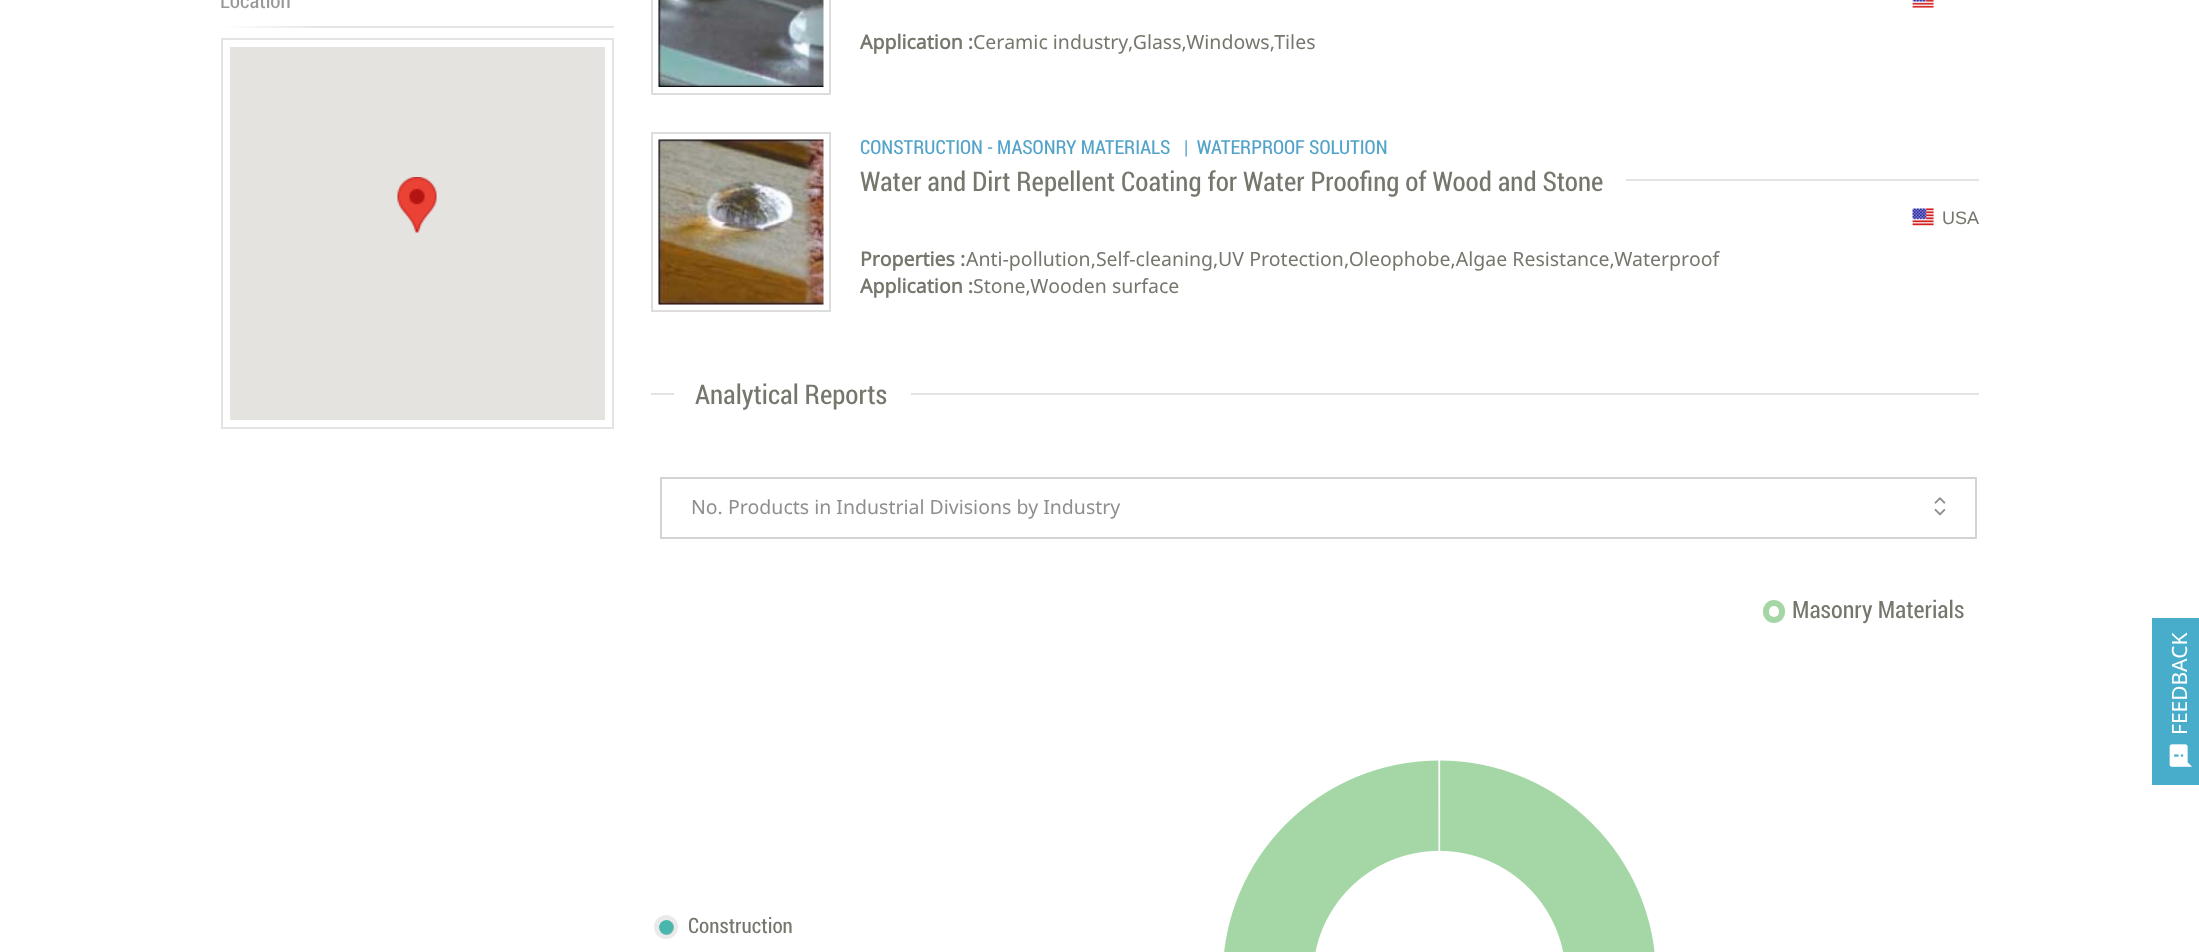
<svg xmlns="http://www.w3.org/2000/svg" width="2199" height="952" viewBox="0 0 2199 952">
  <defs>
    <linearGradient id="g1" gradientUnits="userSpaceOnUse" x1="221" y1="26" x2="326" y2="26"><stop offset="0" stop-color="rgb(255,255,255)"/><stop offset="1" stop-color="rgb(255,255,255)" stop-opacity="0"/></linearGradient>
  </defs>
  <rect width="100%" height="100%" fill="rgb(255,255,255)"/>
  <text x="220" y="8" font-family="Roboto Condensed" font-size="21" fill="rgb(152,152,152)">Location</text>
  <rect x="221" y="26" width="393" height="2" fill="rgb(228,228,228)"/>
  <rect x="221" y="26" width="95" height="2" fill="url(#g1)"/>
  <rect x="222" y="39" width="391" height="389" fill="none" stroke="rgb(228,228,228)" stroke-width="2"/>
  <rect x="230" y="47" width="375" height="373" fill="rgb(229,227,223)"/>
  <image x="397" y="177" width="40" height="56" href="pic1.png"/>
  <rect x="652" y="-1" width="178" height="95" fill="none" stroke="rgb(221,221,221)" stroke-width="2"/>
  <image x="658" y="0" width="166" height="87" href="pic2.png"/>
  <image x="1912" y="0" width="22" height="8" href="pic3.png"/>
  <text x="860" y="49" font-family="Noto Sans" font-size="19.5" font-weight="bold" fill="rgb(118,118,109)">Application :</text>
  <text x="973" y="49" font-family="Noto Sans" font-size="19.5" fill="rgb(118,118,109)">Ceramic industry,Glass,Windows,Tiles</text>
  <rect x="652" y="133" width="178" height="178" fill="none" stroke="rgb(221,221,221)" stroke-width="2"/>
  <image x="658" y="139" width="166" height="166" href="pic4.png"/>
  <g font-family="Roboto Condensed" font-size="19.5" fill="rgb(82,163,201)">
    <text x="860" y="154">CONSTRUCTION - MASONRY MATERIALS</text>
    <text x="1184" y="154" xml:space="preserve">|  WATERPROOF SOLUTION</text>
  </g>
  <text x="860" y="191" font-family="Roboto Condensed" font-size="27" fill="rgb(118,118,109)">Water and Dirt Repellent Coating for Water Proofing of Wood and Stone</text>
  <rect x="1626" y="179" width="353" height="2" fill="rgb(228,228,228)"/>
  <image x="1912" y="208" width="22" height="18" href="pic5.png"/>
  <text x="1942" y="224" font-family="Liberation Sans" font-size="18" fill="rgb(118,118,109)">USA</text>
  <text x="860" y="266" font-family="Noto Sans" font-size="19.5" font-weight="bold" fill="rgb(118,118,109)">Properties :</text>
  <text x="966" y="266" font-family="Noto Sans" font-size="19.5" fill="rgb(118,118,109)">Anti-pollution,Self-cleaning,UV Protection,Oleophobe,Algae Resistance,Waterproof</text>
  <text x="860" y="293" font-family="Noto Sans" font-size="19.5" font-weight="bold" fill="rgb(118,118,109)">Application :</text>
  <text x="973" y="293" font-family="Noto Sans" font-size="19.5" fill="rgb(118,118,109)">Stone,Wooden surface</text>
  <rect x="651" y="393" width="1328" height="2" fill="rgb(228,228,228)"/>
  <rect x="674" y="393" width="237" height="2" fill="rgb(255,255,255)"/>
  <text x="695" y="404" font-family="Roboto Condensed" font-size="27" fill="rgb(118,118,109)">Analytical Reports</text>
  <rect x="661" y="478" width="1315" height="60" fill="none" stroke="rgb(211,211,211)" stroke-width="2"/>
  <text x="691" y="514" font-family="Noto Sans" font-size="19.5" fill="rgb(142,142,142)">No. Products in Industrial Divisions by Industry</text>
  <image x="1934" y="497" width="12" height="19" href="pic6.png"/>
  <rect x="1763" y="600" width="22" height="23" rx="11" fill="rgb(164,215,165)"/>
  <rect x="1769" y="606" width="10" height="11" rx="5" fill="rgb(255,255,255)"/>
  <text x="1792" y="618" font-family="Roboto Condensed" font-size="24" fill="rgb(118,118,109)">Masonry Materials</text>
  <circle cx="666.5" cy="927.5" r="7.5" fill="rgb(72,182,172)"/>
  <circle cx="666" cy="927" r="9.5" fill="none" stroke="rgba(192,192,192,0.34)" stroke-width="5"/>
  <text x="688" y="933" font-family="Roboto Condensed" font-size="21" fill="rgb(118,118,109)">Construction</text>
  <image x="1224" y="760" width="431" height="192" href="pic7.png"/>
  <rect x="2152" y="618" width="47" height="167" fill="rgb(71,173,202)"/>
  <text x="2187" y="735" transform="rotate(-90 2187 735)" font-family="Noto Sans" font-size="21" fill="rgb(255,255,255)">FEEDBACK</text>
  <image x="2169" y="744" width="23" height="23" href="pic8.png"/>
</svg>
